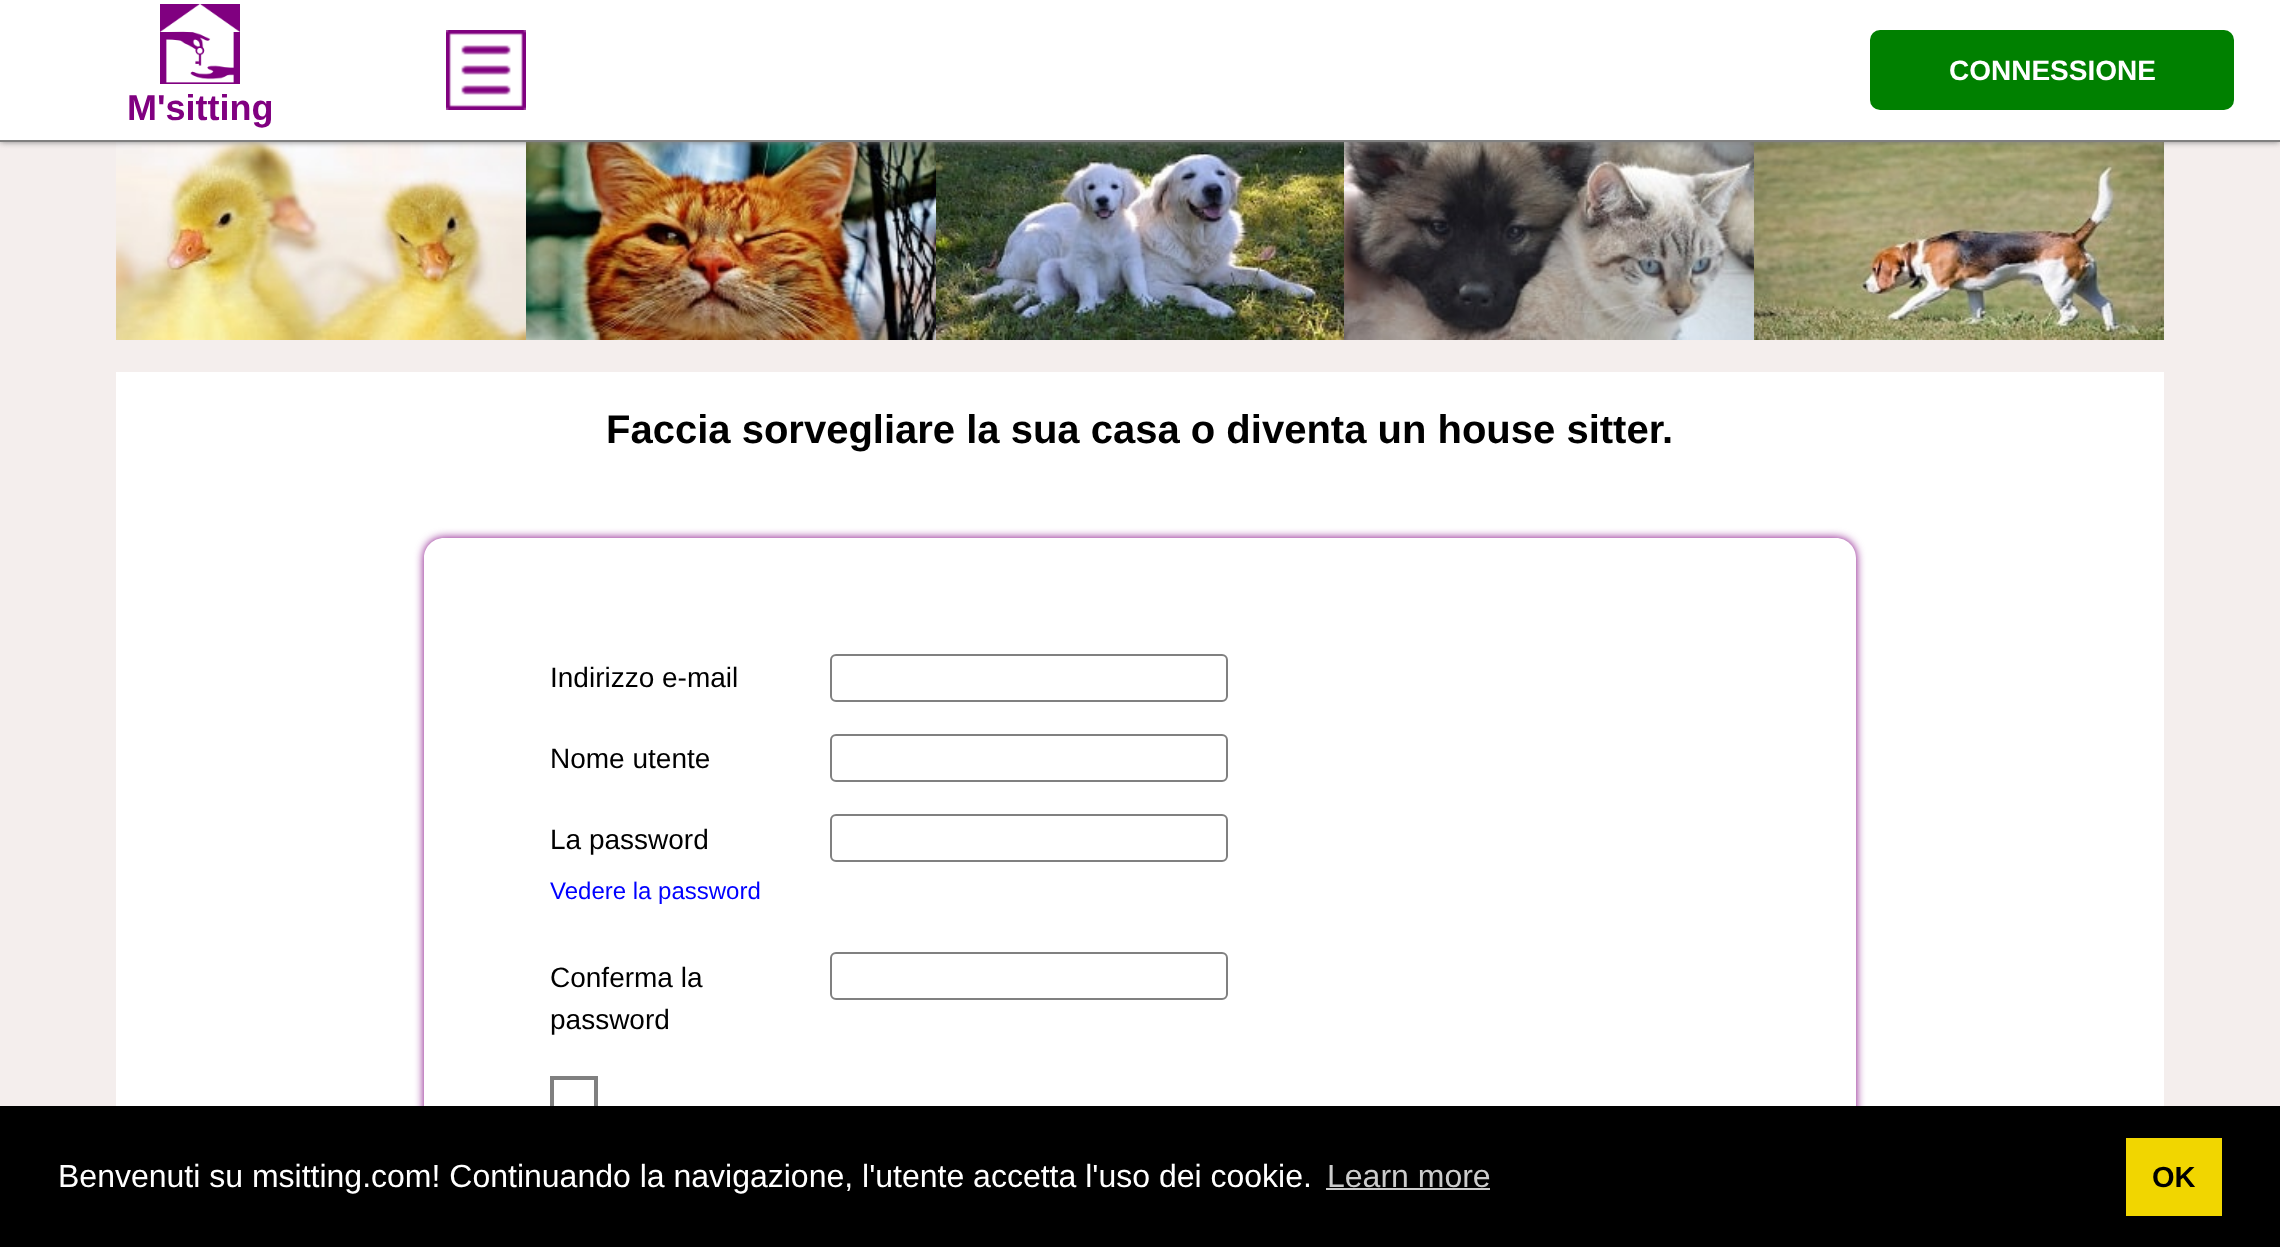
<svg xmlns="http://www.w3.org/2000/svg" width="2280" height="1247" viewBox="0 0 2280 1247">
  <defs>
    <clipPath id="clip1"><path d="M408 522H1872V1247H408ZM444 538H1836C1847 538 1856 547 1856 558V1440C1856 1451 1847 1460 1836 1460H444C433 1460 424 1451 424 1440V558C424 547 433 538 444 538Z" clip-rule="evenodd"/></clipPath>
  </defs>
  <rect width="100%" height="100%" fill="rgb(244,238,237)"/>
  <image x="116" y="142" width="410" height="198" href="pic3.png"/>
  <image x="526" y="142" width="410" height="198" href="pic4.png"/>
  <image x="936" y="142" width="408" height="198" href="pic5.png"/>
  <image x="1344" y="142" width="410" height="198" href="pic6.png"/>
  <image x="1754" y="142" width="410" height="198" href="pic7.png"/>
  <rect x="0" y="0" width="2280" height="142" fill="rgb(128,128,128)" filter="blur(3px)"/>
  <rect x="0" y="0" width="2280" height="140" fill="rgb(255,255,255)"/>
  <rect x="0" y="140" width="2280" height="2" fill="rgb(128,128,128)"/>
  <image x="446" y="30" width="80" height="80" href="pic1.png"/>
  <rect x="1870" y="30" width="364" height="80" rx="10" fill="rgb(0,128,0)"/>
  <text x="1949" y="80" font-family="Liberation Sans" font-size="28" font-weight="bold" fill="rgb(255,255,255)">CONNESSIONE</text>
  <image x="160" y="4" width="80" height="80" href="pic2.png"/>
  <text x="127" y="120" font-family="Liberation Sans" font-size="36" font-weight="bold" fill="rgb(128,0,128)">M'sitting</text>
  <rect x="116" y="372" width="2048" height="734" fill="rgb(255,255,255)"/>
  <text x="606" y="443" font-family="Liberation Sans" font-size="40" font-weight="bold" fill="rgb(0,0,0)">Faccia sorvegliare la sua casa o diventa un house sitter.</text>
  <g clip-path="url(#clip1)">
    <rect x="424" y="538" width="1432" height="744" rx="20" fill="rgb(128,0,128)" filter="blur(5px)"/>
  </g>
  <text x="550" y="687" font-family="Liberation Sans" font-size="28" fill="rgb(0,0,0)">Indirizzo e-mail</text>
  <rect x="831" y="655" width="396" height="46" rx="5" fill="none" stroke="rgb(128,128,128)" stroke-width="2"/>
  <text x="550" y="768" font-family="Liberation Sans" font-size="28" fill="rgb(0,0,0)">Nome utente</text>
  <rect x="831" y="735" width="396" height="46" rx="5" fill="none" stroke="rgb(128,128,128)" stroke-width="2"/>
  <text x="550" y="849" font-family="Liberation Sans" font-size="28" fill="rgb(0,0,0)">La password</text>
  <rect x="831" y="815" width="396" height="46" rx="5" fill="none" stroke="rgb(128,128,128)" stroke-width="2"/>
  <text x="550" y="899" font-family="Liberation Sans" font-size="24" fill="rgb(0,0,255)">Vedere la password</text>
  <g font-family="Liberation Sans" font-size="28" fill="rgb(0,0,0)">
    <text>
      <tspan x="550" y="987">Conferma la</tspan>
      <tspan x="550" y="1029">password</tspan>
    </text>
  </g>
  <rect x="831" y="953" width="396" height="46" rx="5" fill="none" stroke="rgb(128,128,128)" stroke-width="2"/>
  <rect x="552" y="1078" width="44" height="44" fill="none" stroke="rgb(128,128,128)" stroke-width="4"/>
  <rect x="0" y="1106" width="2280" height="141" fill="rgb(0,0,0)"/>
  <text x="58" y="1187" font-family="Liberation Sans" font-size="32" fill="rgb(255,255,255)">Benvenuti su msitting.com! Continuando la navigazione, l'utente accetta l'uso dei cookie.</text>
  <text x="1327" y="1187" font-family="Liberation Sans" font-size="32" fill="rgb(204,204,204)">Learn more</text>
  <rect x="1326" y="1188" width="164" height="2" fill="rgb(204,204,204)"/>
  <rect x="2126" y="1138" width="96" height="78" fill="rgb(241,214,0)"/>
  <text x="2152" y="1187" font-family="Liberation Sans" font-size="29" font-weight="bold" fill="rgb(0,0,0)">OK</text>
</svg>
